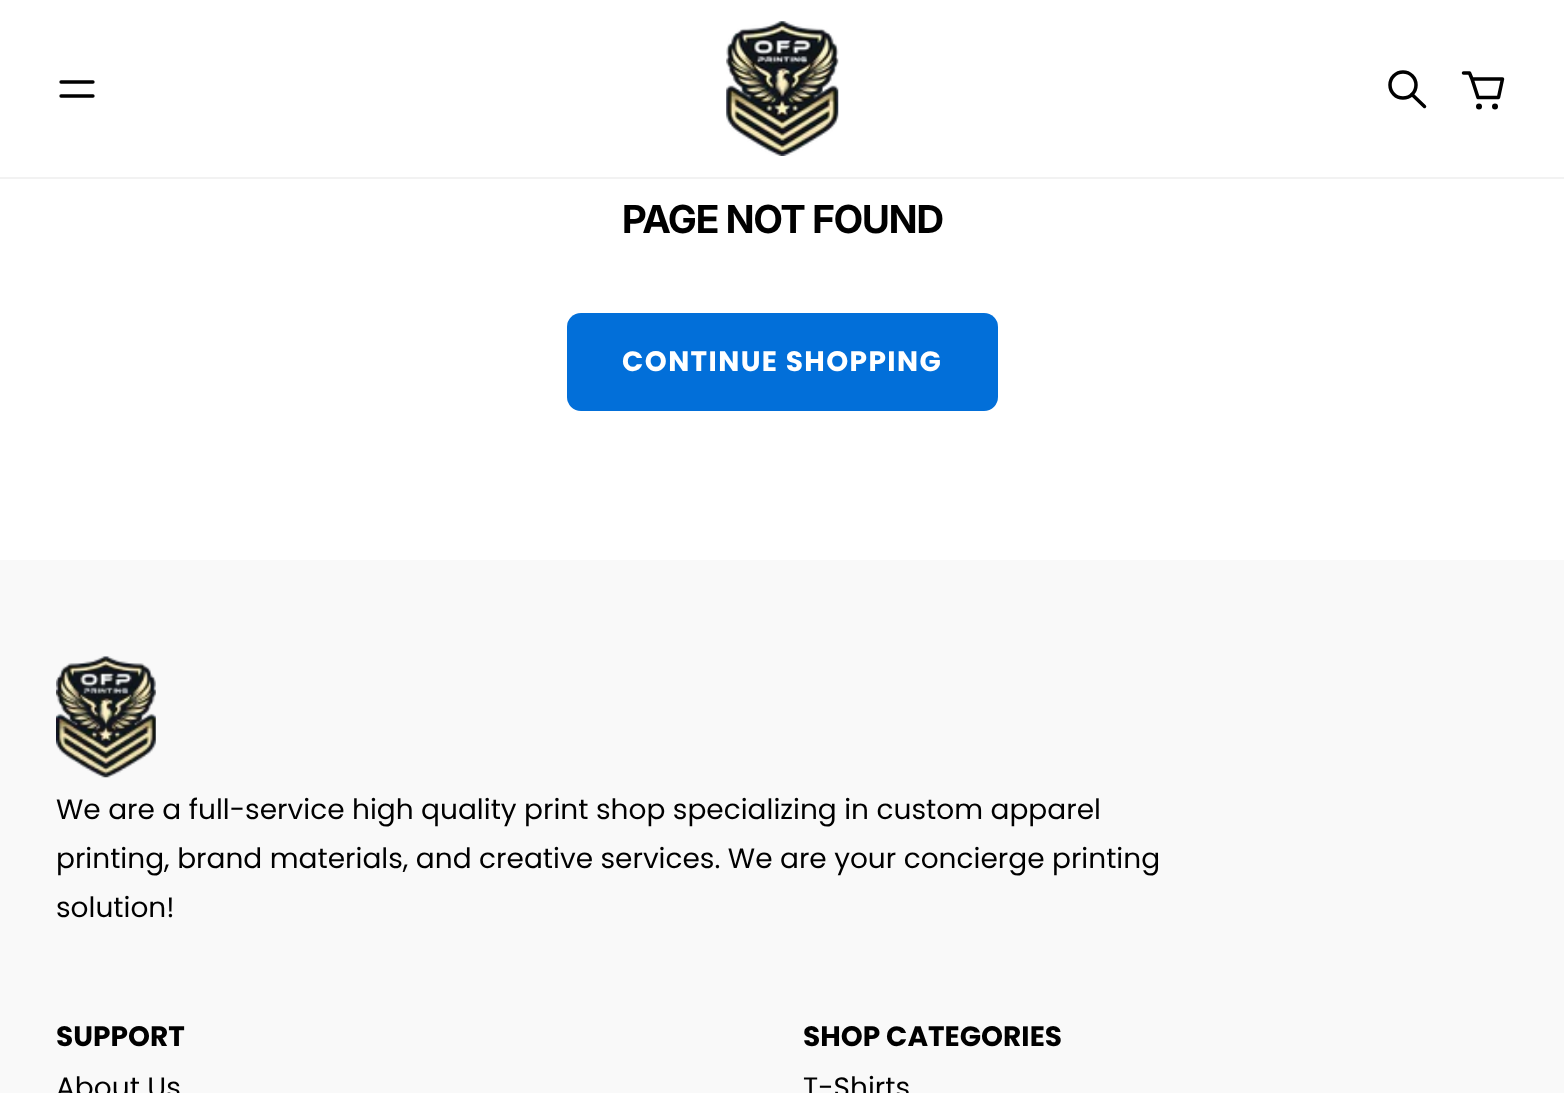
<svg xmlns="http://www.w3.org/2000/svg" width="1564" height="1093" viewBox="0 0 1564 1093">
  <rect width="100%" height="100%" fill="rgb(255,255,255)"/>
  <rect x="0" y="177" width="1564" height="2" fill="rgb(242,242,242)"/>
  <path d="M93 96H61M93 82H61" fill="none" stroke="rgb(0,0,0)" stroke-width="3.3" stroke-linecap="round" stroke-linejoin="round"/>
  <image x="726" y="21" width="113" height="135" href="pic1.png"/>
  <path d="M1424.5 106.5L1412 94.5" fill="none" stroke="rgb(0,0,0)" stroke-width="3.5" stroke-linecap="round" stroke-linejoin="round"/>
  <circle cx="1403" cy="85" r="13" fill="none" stroke="rgb(0,0,0)" stroke-width="3.5"/>
  <path d="M1472 79H1502.5L1498.5 97.5H1478ZM1472 79L1469.5 73H1463.5" fill="none" stroke="rgb(0,0,0)" stroke-width="3.5" stroke-linecap="round" stroke-linejoin="round"/>
  <circle cx="1479" cy="106.5" r="3" fill="rgb(0,0,0)"/>
  <circle cx="1495" cy="106.5" r="3" fill="rgb(0,0,0)"/>
  <text x="622" y="233" font-family="Inter" font-size="38.5" font-weight="bold" letter-spacing="-1" fill="rgb(0,0,0)">PAGE NOT FOUND</text>
  <rect x="567" y="313" width="431" height="98" rx="14" fill="rgb(2,111,217)"/>
  <text x="622" y="371" font-family="Poppins" font-size="28" font-weight="bold" letter-spacing="1.4" fill="rgb(255,255,255)">CONTINUE SHOPPING</text>
  <rect x="0" y="560" width="1564" height="533" fill="rgb(249,249,249)"/>
  <image x="56" y="656" width="100" height="122" href="pic2.png"/>
  <g font-family="Poppins" font-size="28" fill="rgb(0,0,0)">
    <text>
      <tspan x="56" y="819">We are a full-service high quality print shop specializing in custom apparel</tspan>
      <tspan x="56" y="868">printing, brand materials, and creative services. We are your concierge printing</tspan>
      <tspan x="56" y="917">solution!</tspan>
    </text>
  </g>
  <text x="56" y="1046" font-family="Poppins" font-size="28" font-weight="bold" fill="rgb(0,0,0)">SUPPORT</text>
  <text x="56" y="1097" font-family="Poppins" font-size="28" fill="rgb(0,0,0)">About Us</text>
  <text x="803" y="1046" font-family="Poppins" font-size="28" font-weight="bold" fill="rgb(0,0,0)">SHOP CATEGORIES</text>
  <text x="803" y="1097" font-family="Poppins" font-size="28" fill="rgb(0,0,0)">T-Shirts</text>
</svg>
